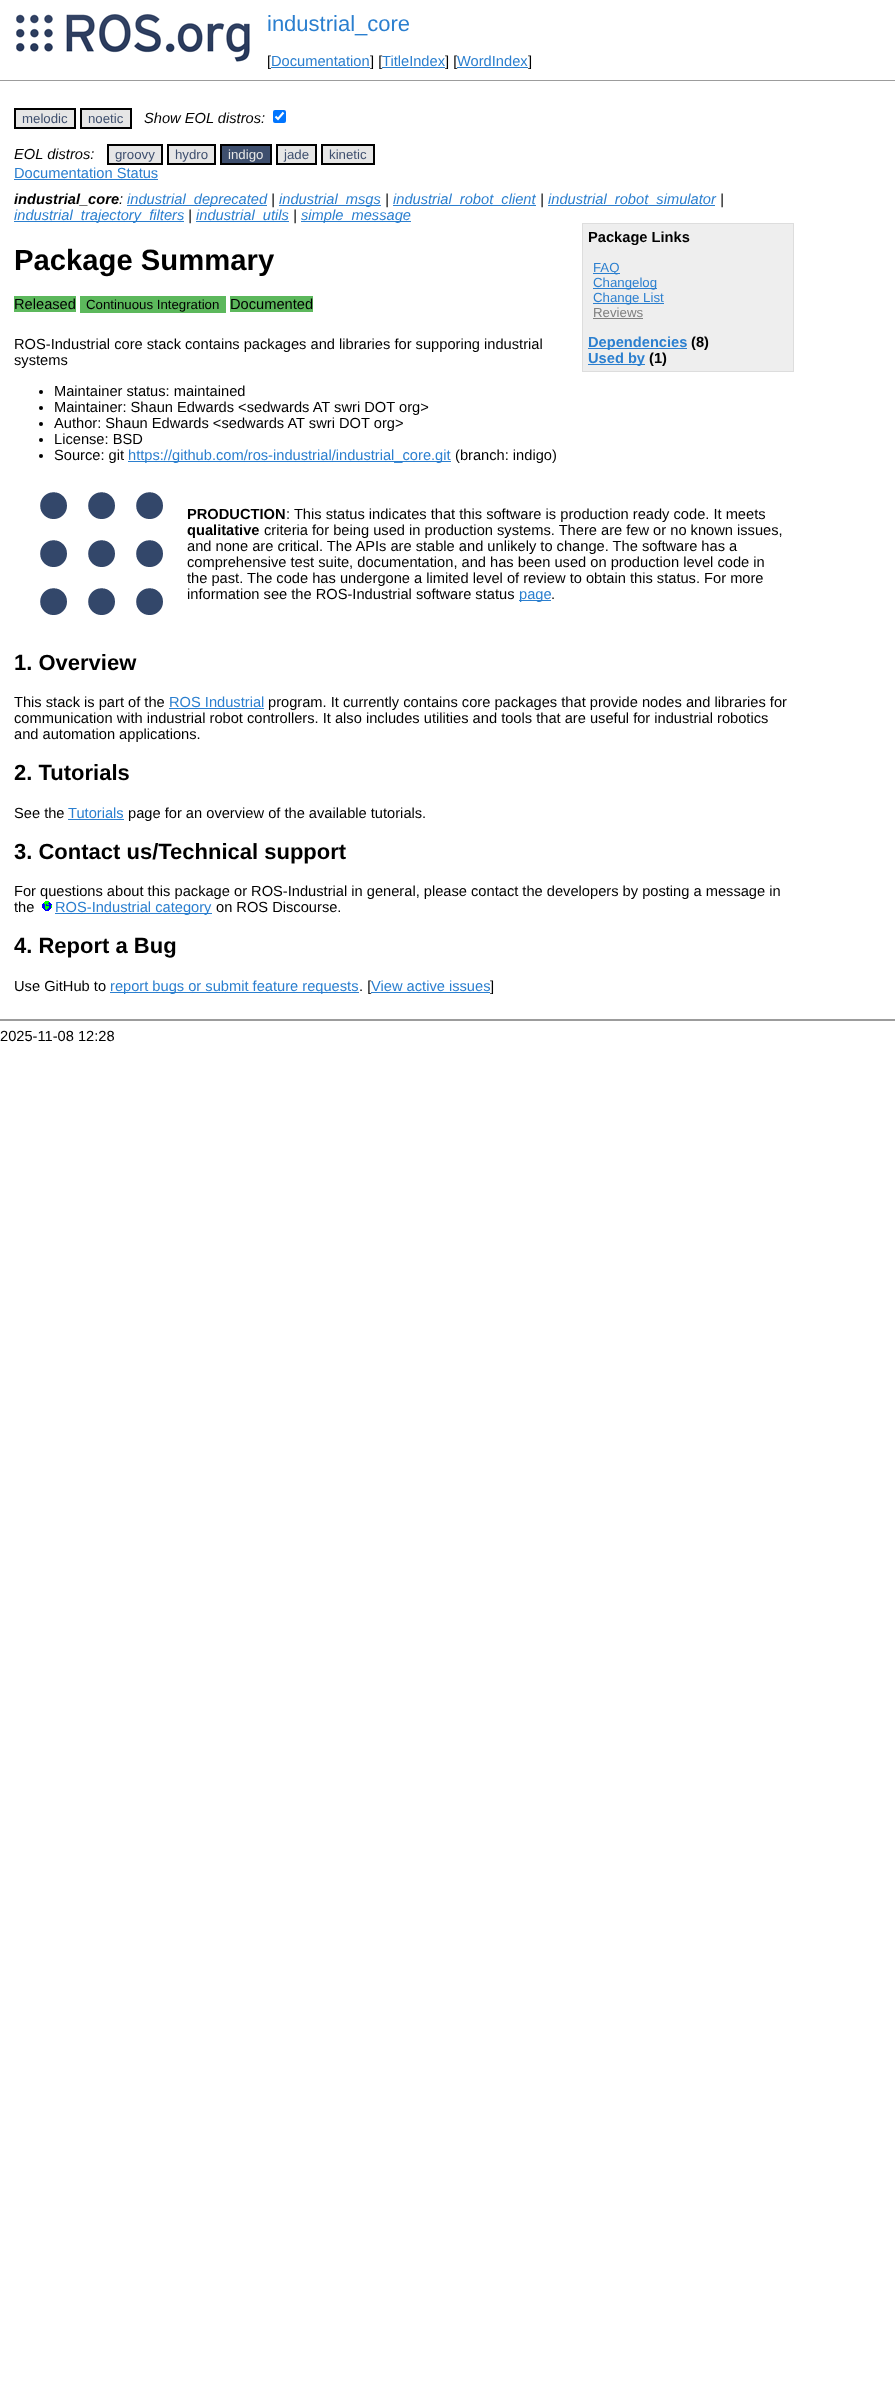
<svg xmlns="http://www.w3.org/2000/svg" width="895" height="2387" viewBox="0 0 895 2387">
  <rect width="100%" height="100%" fill="rgb(255,255,255)"/>
  <image x="16" y="14" width="234" height="48" href="pic1.png"/>
  <text x="267" y="31" font-family="Liberation Sans" font-size="22" fill="rgb(43,127,207)">industrial_core</text>
  <text x="267" y="66" font-family="Liberation Sans" font-size="14.67" fill="rgb(0,0,0)">[</text>
  <text x="271" y="66" font-family="Liberation Sans" font-size="14.67" fill="rgb(43,127,207)">Documentation</text>
  <rect x="271" y="67" width="99" height="1" fill="rgb(43,127,207)"/>
  <text x="370" y="66" font-family="Liberation Sans" font-size="14.67" fill="rgb(0,0,0)">] [</text>
  <text x="382" y="66" font-family="Liberation Sans" font-size="14.67" fill="rgb(43,127,207)">TitleIndex</text>
  <rect x="382" y="67" width="63" height="1" fill="rgb(43,127,207)"/>
  <text x="445" y="66" font-family="Liberation Sans" font-size="14.67" fill="rgb(0,0,0)">] [</text>
  <text x="457" y="66" font-family="Liberation Sans" font-size="14.67" fill="rgb(43,127,207)">WordIndex</text>
  <rect x="457" y="67" width="71" height="1" fill="rgb(43,127,207)"/>
  <text x="528" y="66" font-family="Liberation Sans" font-size="14.67" fill="rgb(0,0,0)">]</text>
  <rect x="0" y="80" width="895" height="1" fill="rgb(156,156,156)"/>
  <rect x="15" y="109" width="60" height="19" fill="rgb(230,230,230)" stroke="rgb(0,0,0)" stroke-width="2"/>
  <text x="22" y="123" font-family="Liberation Sans" font-size="13.25" fill="rgb(62,79,110)">melodic</text>
  <rect x="81" y="109" width="50" height="19" fill="rgb(230,230,230)" stroke="rgb(0,0,0)" stroke-width="2"/>
  <text x="88" y="123" font-family="Liberation Sans" font-size="13.25" fill="rgb(62,79,110)">noetic</text>
  <text x="144" y="123" font-family="Liberation Sans" font-size="14.67" font-style="italic" fill="rgb(0,0,0)">Show EOL distros:</text>
  <rect x="273" y="110" width="13" height="13" rx="2" fill="rgb(0,117,255)"/>
  <path d="M275.5 116.5L278 119L283.5 112.5" fill="none" stroke="rgb(255,255,255)" stroke-width="2.1"/>
  <text x="14" y="159" font-family="Liberation Sans" font-size="14.67" font-style="italic" fill="rgb(0,0,0)">EOL distros:</text>
  <rect x="108" y="145" width="54" height="19" fill="rgb(230,230,230)" stroke="rgb(0,0,0)" stroke-width="2"/>
  <text x="115" y="159" font-family="Liberation Sans" font-size="13.25" fill="rgb(62,79,110)">groovy</text>
  <rect x="168" y="145" width="47" height="19" fill="rgb(230,230,230)" stroke="rgb(0,0,0)" stroke-width="2"/>
  <text x="175" y="159" font-family="Liberation Sans" font-size="13.25" fill="rgb(62,79,110)">hydro</text>
  <rect x="221" y="145" width="50" height="19" fill="rgb(62,79,110)" stroke="rgb(0,0,0)" stroke-width="2"/>
  <text x="228" y="159" font-family="Liberation Sans" font-size="13.25" fill="rgb(230,230,230)">indigo</text>
  <rect x="277" y="145" width="39" height="19" fill="rgb(230,230,230)" stroke="rgb(0,0,0)" stroke-width="2"/>
  <text x="284" y="159" font-family="Liberation Sans" font-size="13.25" fill="rgb(62,79,110)">jade</text>
  <rect x="322" y="145" width="52" height="19" fill="rgb(230,230,230)" stroke="rgb(0,0,0)" stroke-width="2"/>
  <text x="329" y="159" font-family="Liberation Sans" font-size="13.25" fill="rgb(62,79,110)">kinetic</text>
  <text x="14" y="178" font-family="Liberation Sans" font-size="14.67" fill="rgb(43,127,207)">Documentation Status</text>
  <rect x="14" y="179" width="144" height="1" fill="rgb(43,127,207)"/>
  <text x="14" y="204" font-family="Liberation Sans" font-size="14.67" font-weight="bold" font-style="italic" fill="rgb(0,0,0)">industrial_core</text>
  <text x="119" y="204" font-family="Liberation Sans" font-size="14.67" font-style="italic" fill="rgb(0,0,0)">:</text>
  <rect x="127" y="205" width="140" height="1" fill="rgb(43,127,207)"/>
  <text x="127" y="204" font-family="Liberation Sans" font-size="14.67" font-style="italic" fill="rgb(43,127,207)">industrial_deprecated</text>
  <text x="271" y="204" font-family="Liberation Sans" font-size="14.67" font-style="italic" fill="rgb(0,0,0)">|</text>
  <rect x="279" y="205" width="102" height="1" fill="rgb(43,127,207)"/>
  <text x="279" y="204" font-family="Liberation Sans" font-size="14.67" font-style="italic" fill="rgb(43,127,207)">industrial_msgs</text>
  <text x="385" y="204" font-family="Liberation Sans" font-size="14.67" font-style="italic" fill="rgb(0,0,0)">|</text>
  <rect x="393" y="205" width="143" height="1" fill="rgb(43,127,207)"/>
  <text x="393" y="204" font-family="Liberation Sans" font-size="14.67" font-style="italic" fill="rgb(43,127,207)">industrial_robot_client</text>
  <text x="540" y="204" font-family="Liberation Sans" font-size="14.67" font-style="italic" fill="rgb(0,0,0)">|</text>
  <rect x="548" y="205" width="167" height="1" fill="rgb(43,127,207)"/>
  <text x="548" y="204" font-family="Liberation Sans" font-size="14.67" font-style="italic" fill="rgb(43,127,207)">industrial_robot_simulator</text>
  <text x="720" y="204" font-family="Liberation Sans" font-size="14.67" font-style="italic" fill="rgb(0,0,0)">|</text>
  <rect x="14" y="221" width="170" height="1" fill="rgb(43,127,207)"/>
  <text x="14" y="220" font-family="Liberation Sans" font-size="14.67" font-style="italic" fill="rgb(43,127,207)">industrial_trajectory_filters</text>
  <text x="188" y="220" font-family="Liberation Sans" font-size="14.67" font-style="italic" fill="rgb(0,0,0)">|</text>
  <rect x="196" y="221" width="93" height="1" fill="rgb(43,127,207)"/>
  <text x="196" y="220" font-family="Liberation Sans" font-size="14.67" font-style="italic" fill="rgb(43,127,207)">industrial_utils</text>
  <text x="293" y="220" font-family="Liberation Sans" font-size="14.67" font-style="italic" fill="rgb(0,0,0)">|</text>
  <rect x="301" y="221" width="110" height="1" fill="rgb(43,127,207)"/>
  <text x="301" y="220" font-family="Liberation Sans" font-size="14.67" font-style="italic" fill="rgb(43,127,207)">simple_message</text>
  <text x="14" y="270" font-family="Liberation Sans" font-size="29.25" font-weight="bold" fill="rgb(0,0,0)">Package Summary</text>
  <rect x="582.5" y="223.5" width="211" height="148" fill="rgb(238,238,238)" stroke="rgb(221,221,221)"/>
  <text x="588" y="242" font-family="Liberation Sans" font-size="14.67" font-weight="bold" fill="rgb(0,0,0)">Package Links</text>
  <rect x="593" y="273" width="27" height="1" fill="rgb(43,127,207)"/>
  <text x="593" y="272" font-family="Liberation Sans" font-size="13.25" fill="rgb(43,127,207)">FAQ</text>
  <rect x="593" y="288" width="64" height="1" fill="rgb(43,127,207)"/>
  <text x="593" y="287" font-family="Liberation Sans" font-size="13.25" fill="rgb(43,127,207)">Changelog</text>
  <rect x="593" y="303" width="71" height="1" fill="rgb(43,127,207)"/>
  <text x="593" y="302" font-family="Liberation Sans" font-size="13.25" fill="rgb(43,127,207)">Change List</text>
  <text x="593" y="317" font-family="Liberation Sans" font-size="13.25" fill="rgb(128,128,128)">Reviews</text>
  <rect x="593" y="318" width="50" height="1" fill="rgb(128,128,128)"/>
  <rect x="588" y="348" width="99" height="1" fill="rgb(43,127,207)"/>
  <text x="588" y="347" font-family="Liberation Sans" font-size="14.67" font-weight="bold" fill="rgb(43,127,207)">Dependencies</text>
  <text x="691" y="347" font-family="Liberation Sans" font-size="14.67" font-weight="bold" fill="rgb(0,0,0)">(8)</text>
  <rect x="588" y="364" width="57" height="1" fill="rgb(43,127,207)"/>
  <text x="588" y="363" font-family="Liberation Sans" font-size="14.67" font-weight="bold" fill="rgb(43,127,207)">Used by</text>
  <text x="649" y="363" font-family="Liberation Sans" font-size="14.67" font-weight="bold" fill="rgb(0,0,0)">(1)</text>
  <rect x="14" y="296" width="62" height="16" fill="rgb(92,184,92)"/>
  <text x="14" y="309" font-family="Liberation Sans" font-size="14.67" fill="rgb(0,0,0)">Released</text>
  <rect x="80" y="296" width="146" height="17" fill="rgb(92,184,92)"/>
  <text x="86" y="309" font-family="Liberation Sans" font-size="13.25" fill="rgb(0,0,0)">Continuous Integration</text>
  <rect x="230" y="296" width="83" height="16" fill="rgb(92,184,92)"/>
  <g font-family="Liberation Sans" font-size="14.67" fill="rgb(0,0,0)">
    <text x="230" y="309">Documented</text>
    <text>
      <tspan x="14" y="349">ROS-Industrial core stack contains packages and libraries for supporing industrial</tspan>
      <tspan x="14" y="365">systems</tspan>
    </text>
  </g>
  <circle cx="41" cy="392" r="2" fill="rgb(0,0,0)"/>
  <text x="54" y="396" font-family="Liberation Sans" font-size="14.67" fill="rgb(0,0,0)">Maintainer status: maintained</text>
  <circle cx="41" cy="408" r="2" fill="rgb(0,0,0)"/>
  <text x="54" y="412" font-family="Liberation Sans" font-size="14.67" fill="rgb(0,0,0)">Maintainer: Shaun Edwards &lt;sedwards AT swri DOT org&gt;</text>
  <circle cx="41" cy="424" r="2" fill="rgb(0,0,0)"/>
  <text x="54" y="428" font-family="Liberation Sans" font-size="14.67" fill="rgb(0,0,0)">Author: Shaun Edwards &lt;sedwards AT swri DOT org&gt;</text>
  <circle cx="41" cy="440" r="2" fill="rgb(0,0,0)"/>
  <text x="54" y="444" font-family="Liberation Sans" font-size="14.67" fill="rgb(0,0,0)">License: BSD</text>
  <circle cx="41" cy="456" r="2" fill="rgb(0,0,0)"/>
  <text x="54" y="460" font-family="Liberation Sans" font-size="14.67" fill="rgb(0,0,0)">Source: git</text>
  <rect x="128" y="461" width="323" height="1" fill="rgb(43,127,207)"/>
  <text x="128" y="460" font-family="Liberation Sans" font-size="14.67" fill="rgb(43,127,207)">https://github.com/ros-industrial/industrial_core.git</text>
  <text x="455" y="460" font-family="Liberation Sans" font-size="14.67" fill="rgb(0,0,0)">(branch: indigo)</text>
  <image x="40" y="492" width="123" height="123" href="pic2.png"/>
  <text x="187" y="519" font-family="Liberation Sans" font-size="14.67" font-weight="bold" fill="rgb(0,0,0)">PRODUCTION</text>
  <text x="286" y="519" font-family="Liberation Sans" font-size="14.67" fill="rgb(0,0,0)">: This status indicates that this software is production ready code. It meets</text>
  <text x="187" y="535" font-family="Liberation Sans" font-size="14.67" font-weight="bold" fill="rgb(0,0,0)">qualitative</text>
  <g font-family="Liberation Sans" font-size="14.67" fill="rgb(0,0,0)">
    <text x="264" y="535">criteria for being used in production systems. There are few or no known issues,</text>
    <text>
      <tspan x="187" y="551">and none are critical. The APIs are stable and unlikely to change. The software has a</tspan>
      <tspan x="187" y="567">comprehensive test suite, documentation, and has been used on production level code in</tspan>
      <tspan x="187" y="583">the past. The code has undergone a limited level of review to obtain this status. For more</tspan>
      <tspan x="187" y="599">information see the ROS-Industrial software status</tspan>
    </text>
  </g>
  <rect x="519" y="600" width="32" height="1" fill="rgb(43,127,207)"/>
  <text x="519" y="599" font-family="Liberation Sans" font-size="14.67" fill="rgb(43,127,207)">page</text>
  <text x="551" y="599" font-family="Liberation Sans" font-size="14.67" fill="rgb(0,0,0)">.</text>
  <text x="14" y="670" font-family="Liberation Sans" font-size="22" font-weight="bold" fill="rgb(0,0,0)">1. Overview</text>
  <text x="14" y="707" font-family="Liberation Sans" font-size="14.67" fill="rgb(0,0,0)">This stack is part of the</text>
  <text x="169" y="707" font-family="Liberation Sans" font-size="14.67" fill="rgb(43,127,207)">ROS Industrial</text>
  <rect x="169" y="708" width="95" height="1" fill="rgb(43,127,207)"/>
  <g font-family="Liberation Sans" font-size="14.67" fill="rgb(0,0,0)">
    <text x="268" y="707">program. It currently contains core packages that provide nodes and libraries for</text>
    <text>
      <tspan x="14" y="723">communication with industrial robot controllers. It also includes utilities and tools that are useful for industrial robotics</tspan>
      <tspan x="14" y="739">and automation applications.</tspan>
    </text>
  </g>
  <text x="14" y="780" font-family="Liberation Sans" font-size="22" font-weight="bold" fill="rgb(0,0,0)">2. Tutorials</text>
  <text x="14" y="818" font-family="Liberation Sans" font-size="14.67" fill="rgb(0,0,0)">See the</text>
  <text x="68" y="818" font-family="Liberation Sans" font-size="14.67" fill="rgb(43,127,207)">Tutorials</text>
  <rect x="68" y="819" width="56" height="1" fill="rgb(43,127,207)"/>
  <text x="128" y="818" font-family="Liberation Sans" font-size="14.67" fill="rgb(0,0,0)">page for an overview of the available tutorials.</text>
  <text x="14" y="859" font-family="Liberation Sans" font-size="22" font-weight="bold" fill="rgb(0,0,0)">3. Contact us/Technical support</text>
  <g font-family="Liberation Sans" font-size="14.67" fill="rgb(0,0,0)">
    <text>
      <tspan x="14" y="896">For questions about this package or ROS-Industrial in general, please contact the developers by posting a message in</tspan>
      <tspan x="14" y="912">the</tspan>
    </text>
  </g>
  <image x="42" y="901" width="10" height="10" href="pic3.png"/>
  <rect x="55" y="913" width="157" height="1" fill="rgb(43,127,207)"/>
  <text x="55" y="912" font-family="Liberation Sans" font-size="14.67" fill="rgb(43,127,207)">ROS-Industrial category</text>
  <text x="216" y="912" font-family="Liberation Sans" font-size="14.67" fill="rgb(0,0,0)">on ROS Discourse.</text>
  <text x="14" y="953" font-family="Liberation Sans" font-size="22" font-weight="bold" fill="rgb(0,0,0)">4. Report a Bug</text>
  <text x="14" y="991" font-family="Liberation Sans" font-size="14.67" fill="rgb(0,0,0)">Use GitHub to</text>
  <rect x="110" y="992" width="249" height="1" fill="rgb(43,127,207)"/>
  <text x="110" y="991" font-family="Liberation Sans" font-size="14.67" fill="rgb(43,127,207)">report bugs or submit feature requests</text>
  <text x="359" y="991" font-family="Liberation Sans" font-size="14.67" fill="rgb(0,0,0)">. [</text>
  <text x="371" y="991" font-family="Liberation Sans" font-size="14.67" fill="rgb(43,127,207)">View active issues</text>
  <rect x="371" y="992" width="119" height="1" fill="rgb(43,127,207)"/>
  <text x="490" y="991" font-family="Liberation Sans" font-size="14.67" fill="rgb(0,0,0)">]</text>
  <rect x="0" y="1019" width="895" height="2" fill="rgb(156,156,156)"/>
  <text x="0" y="1041" font-family="Liberation Sans" font-size="14.67" fill="rgb(0,0,0)">2025-11-08 12:28</text>
</svg>
